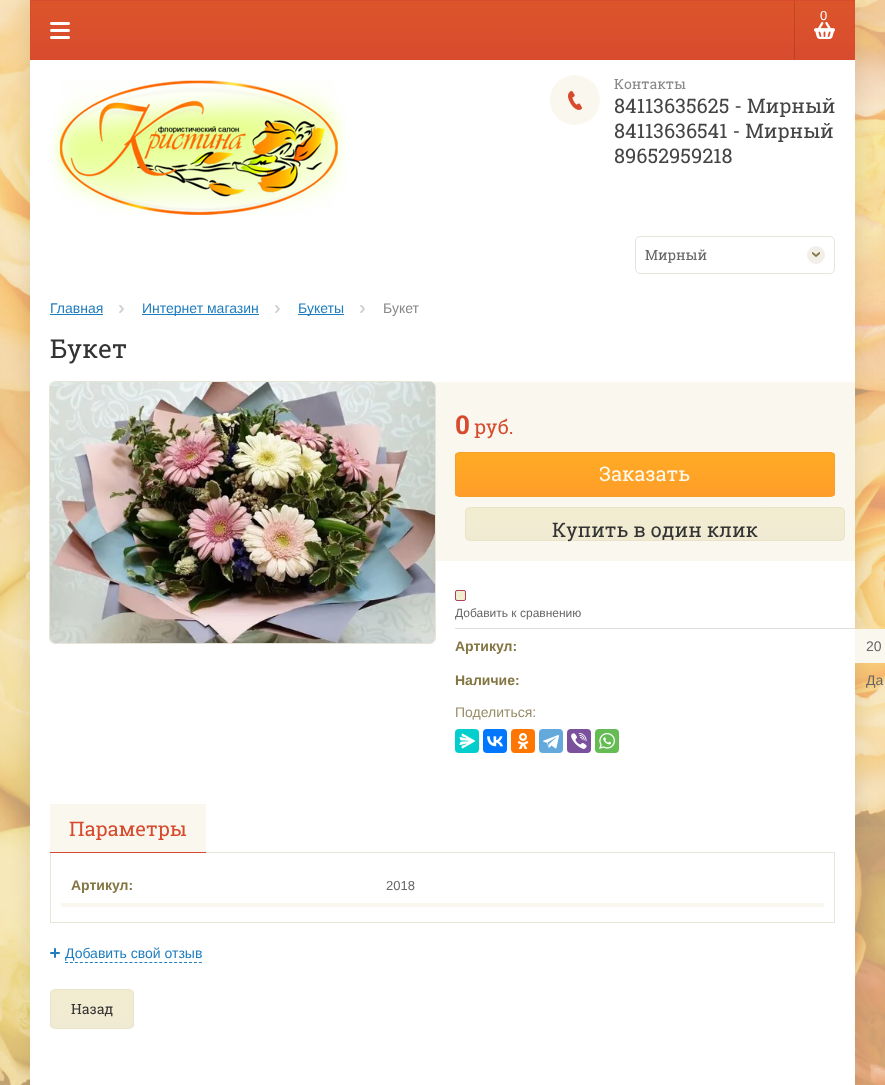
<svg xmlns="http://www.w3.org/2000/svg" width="885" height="1085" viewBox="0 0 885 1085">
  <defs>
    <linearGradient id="g1" gradientUnits="userSpaceOnUse" x1="443" y1="1" x2="443" y2="59"><stop offset="0" stop-color="rgb(220,85,42)"/><stop offset="1" stop-color="rgb(216,75,46)"/></linearGradient>
    <clipPath id="clip1"><rect x="455" y="452" width="380" height="45" rx="4"/></clipPath>
    <linearGradient id="g2" gradientUnits="userSpaceOnUse" x1="645" y1="453" x2="645" y2="496"><stop offset="0" stop-color="rgb(255,171,37)"/><stop offset="1" stop-color="rgb(255,157,40)"/></linearGradient>
    <clipPath id="clip2"><rect x="465" y="507" width="380" height="34" rx="5"/></clipPath>
    <linearGradient id="g3" gradientUnits="userSpaceOnUse" x1="655" y1="508" x2="655" y2="540"><stop offset="0" stop-color="rgb(242,237,208)"/><stop offset="1" stop-color="rgb(240,234,211)"/></linearGradient>
    <clipPath id="clip3"><rect x="50" y="989" width="84" height="40" rx="5"/></clipPath>
    <linearGradient id="g4" gradientUnits="userSpaceOnUse" x1="92" y1="990" x2="92" y2="1028"><stop offset="0" stop-color="rgb(242,237,208)"/><stop offset="1" stop-color="rgb(240,234,211)"/></linearGradient>
  </defs>
  <rect width="100%" height="100%" fill="rgb(255,255,255)"/>
  <image x="0" y="0" width="885" height="1085" href="pic1.png"/>
  <rect x="30" y="0" width="825" height="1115" fill="rgba(0,0,0,0.1)" filter="blur(10px)"/>
  <rect x="31" y="1" width="823" height="58" fill="url(#g1)"/>
  <rect x="30.5" y="0.5" width="824" height="59" fill="none" stroke="rgb(216,76,45)"/>
  <rect x="794" y="1" width="1" height="58" fill="rgba(0,0,0,0.14)"/>
  <image x="814" y="22" width="21" height="17" href="pic2.png"/>
  <text x="820" y="20" font-family="Liberation Sans" font-size="13" fill="rgb(255,255,255)">0</text>
  <image x="50" y="22" width="20" height="17" href="pic3.png"/>
  <rect x="30" y="60" width="825" height="1025" fill="rgb(255,255,255)"/>
  <image x="50" y="80" width="296" height="135" href="pic4.png"/>
  <circle cx="575" cy="100" r="25" fill="rgb(249,247,238)"/>
  <image x="568" y="91" width="14" height="19" href="pic5.png"/>
  <text x="614" y="89" font-family="Roboto Slab" font-size="14" fill="rgb(136,136,136)">Контакты</text>
  <g font-family="Roboto Slab" font-size="20" fill="rgb(68,68,68)">
    <text>
      <tspan x="614" y="113">84113635625 - Мирный</tspan>
      <tspan x="614" y="138">84113636541 - Мирный</tspan>
      <tspan x="614" y="163">89652959218</tspan>
    </text>
  </g>
  <rect x="635.5" y="236.5" width="199" height="37" rx="4.5" fill="none" stroke="rgb(231,228,216)"/>
  <text x="645" y="260" font-family="Roboto Slab" font-size="14" fill="rgb(102,102,102)">Мирный</text>
  <circle cx="816" cy="255" r="9" fill="rgb(241,239,232)"/>
  <image x="812" y="252" width="8" height="5" href="pic6.png"/>
  <text x="50" y="313" font-family="Liberation Sans" font-size="14" fill="rgb(30,125,191)">Главная</text>
  <rect x="50" y="314" width="53" height="1" fill="rgb(30,125,191)"/>
  <image x="119" y="305" width="5" height="8" href="pic7.png"/>
  <rect x="142" y="314" width="117" height="1" fill="rgb(30,125,191)"/>
  <text x="142" y="313" font-family="Liberation Sans" font-size="14" fill="rgb(30,125,191)">Интернет магазин</text>
  <image x="275" y="305" width="5" height="8" href="pic7.png"/>
  <rect x="298" y="314" width="46" height="1" fill="rgb(30,125,191)"/>
  <text x="298" y="313" font-family="Liberation Sans" font-size="14" fill="rgb(30,125,191)">Букеты</text>
  <image x="360" y="305" width="5" height="8" href="pic7.png"/>
  <text x="383" y="313" font-family="Liberation Sans" font-size="14" fill="rgb(136,136,136)">Букет</text>
  <text x="50" y="358" font-family="Roboto Slab" font-size="26" fill="rgb(51,51,51)">Букет</text>
  <rect x="435" y="382" width="420" height="179" fill="rgb(249,247,238)"/>
  <rect x="49.5" y="381.5" width="386" height="262" rx="5.5" fill="none" stroke="rgb(231,228,216)"/>
  <image x="50" y="382" width="385" height="261" href="pic8.png"/>
  <text x="455" y="434" font-family="Roboto Slab" font-size="26" font-weight="bold" fill="rgb(216,74,46)">0</text>
  <text x="474" y="434" font-family="Roboto Slab" font-size="20" fill="rgb(216,74,46)">руб.</text>
  <g clip-path="url(#clip1)">
    <rect x="455" y="453" width="380" height="43" fill="url(#g2)"/>
  </g>
  <rect x="455.5" y="452.5" width="379" height="44" rx="3.5" fill="none" stroke="rgb(249,160,42)"/>
  <text x="599" y="481" font-family="Roboto Slab" font-size="20" fill="rgb(253,249,238)">Заказать</text>
  <g clip-path="url(#clip2)">
    <rect x="465" y="508" width="380" height="32" fill="url(#g3)"/>
  </g>
  <rect x="465.5" y="507.5" width="379" height="33" rx="4.5" fill="none" stroke="rgb(233,227,201)"/>
  <text x="552" y="537" font-family="Roboto Slab" font-size="20" fill="rgb(51,51,51)">Купить в один клик</text>
  <rect x="455" y="628" width="400" height="1" fill="rgb(222,222,222)"/>
  <rect x="455.5" y="590.5" width="10" height="10" rx="1.5" fill="rgb(241,237,207)" stroke="rgb(172,64,90)"/>
  <text x="455" y="617" font-family="Liberation Sans" font-size="12" fill="rgb(102,102,102)">Добавить к сравнению</text>
  <text x="455" y="651" font-family="Liberation Sans" font-size="14" font-weight="bold" fill="rgb(131,118,67)">Артикул:</text>
  <rect x="855" y="629" width="30" height="34" fill="rgb(249,247,238)"/>
  <text x="866" y="651" font-family="Liberation Sans" font-size="14" fill="rgb(102,102,102)">20</text>
  <text x="455" y="685" font-family="Liberation Sans" font-size="14" font-weight="bold" fill="rgb(131,118,67)">Наличие:</text>
  <text x="866" y="685" font-family="Liberation Sans" font-size="14" fill="rgb(102,102,102)">Да</text>
  <text x="455" y="717" font-family="Liberation Sans" font-size="14" fill="rgb(152,142,104)">Поделиться:</text>
  <rect x="455" y="729" width="24" height="24" rx="4" fill="rgb(3,206,206)"/>
  <image x="459" y="733" width="16" height="16" href="pic9.png"/>
  <rect x="483" y="729" width="24" height="24" rx="4" fill="rgb(0,119,255)"/>
  <image x="487" y="736" width="16" height="11" href="pic10.png"/>
  <rect x="511" y="729" width="24" height="24" rx="4" fill="rgb(255,119,0)"/>
  <image x="517" y="733" width="12" height="16" href="pic11.png"/>
  <rect x="539" y="729" width="24" height="24" rx="4" fill="rgb(100,169,220)"/>
  <image x="543" y="735" width="16" height="14" href="pic12.png"/>
  <rect x="567" y="729" width="24" height="24" rx="4" fill="rgb(123,81,157)"/>
  <image x="571" y="733" width="16" height="16" href="pic13.png"/>
  <rect x="595" y="729" width="24" height="24" rx="4" fill="rgb(101,188,84)"/>
  <image x="599" y="733" width="16" height="16" href="pic14.png"/>
  <rect x="50" y="804" width="156" height="48" fill="rgb(249,247,238)"/>
  <rect x="50.5" y="852.5" width="784" height="70" fill="none" stroke="rgb(231,228,216)"/>
  <rect x="50" y="852" width="156" height="1" fill="rgb(216,74,46)"/>
  <text x="69" y="836" font-family="Roboto Slab" font-size="20" fill="rgb(216,74,46)">Параметры</text>
  <text x="71" y="890" font-family="Liberation Sans" font-size="14" font-weight="bold" fill="rgb(131,118,67)">Артикул:</text>
  <text x="386" y="890" font-family="Liberation Sans" font-size="13" fill="rgb(102,102,102)">2018</text>
  <rect x="61" y="903" width="763" height="4" fill="rgb(249,247,238)"/>
  <path d="M65 962.5H202" fill="none" stroke="rgb(30,125,191)" stroke-dasharray="3 1.96"/>
  <image x="50" y="948" width="10" height="10" href="pic15.png"/>
  <text x="65" y="958" font-family="Liberation Sans" font-size="14" fill="rgb(30,125,191)">Добавить свой отзыв</text>
  <g clip-path="url(#clip3)">
    <rect x="50" y="990" width="84" height="38" fill="url(#g4)"/>
  </g>
  <rect x="50.5" y="989.5" width="83" height="39" rx="4.5" fill="none" stroke="rgb(233,227,201)"/>
  <text x="71" y="1014" font-family="Roboto Slab" font-size="14" fill="rgb(51,51,51)">Назад</text>
</svg>
